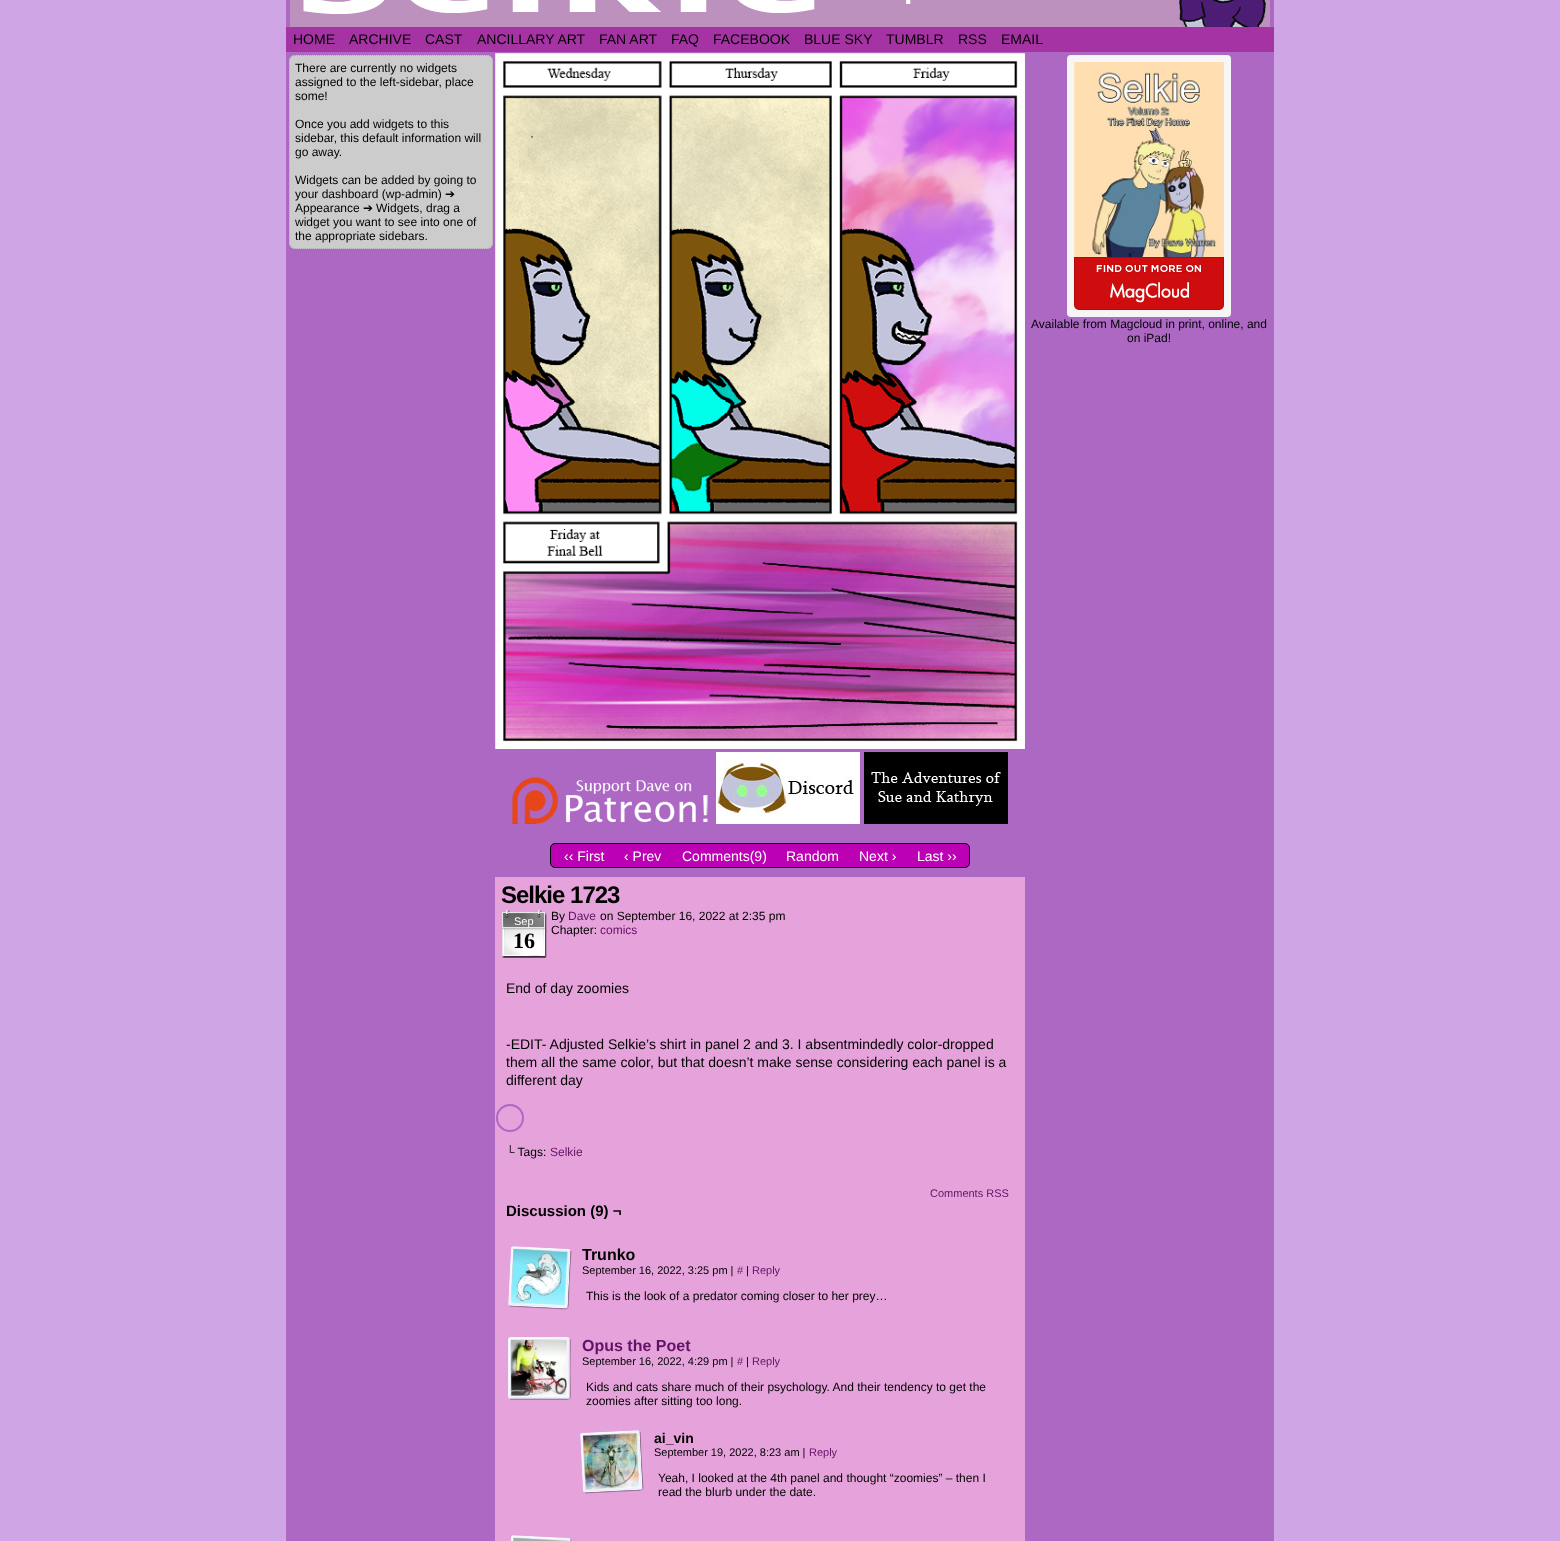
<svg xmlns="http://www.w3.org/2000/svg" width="1560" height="1541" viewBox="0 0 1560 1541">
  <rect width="100%" height="100%" fill="rgb(207,165,229)"/>
  <rect x="286" y="0" width="988" height="1541" fill="rgb(173,104,196)"/>
  <image x="290" y="0" width="980" height="27" href="pic1.png"/>
  <rect x="286" y="27" width="988" height="25" fill="rgb(165,51,163)"/>
  <g font-family="Liberation Sans" font-size="14" fill="rgb(0,0,0)">
    <text x="293" y="44">HOME</text>
    <text x="349" y="44">ARCHIVE</text>
    <text x="425" y="44">CAST</text>
    <text x="477" y="44">ANCILLARY ART</text>
    <text x="599" y="44">FAN ART</text>
    <text x="671" y="44">FAQ</text>
    <text x="713" y="44">FACEBOOK</text>
    <text x="804" y="44">BLUE SKY</text>
    <text x="886" y="44">TUMBLR</text>
    <text x="958" y="44">RSS</text>
    <text x="1001" y="44">EMAIL</text>
  </g>
  <rect x="289" y="55" width="204" height="194" rx="6" fill="rgb(204,204,204)"/>
  <path d="M295 55.5H487C490 55.5 492.5 58 492.5 61V243C492.5 246 490 248.5 487 248.5H295C292 248.5 289.5 246 289.5 243V61C289.5 58 292 55.5 295 55.5Z" fill="none" stroke="rgb(170,170,170)" stroke-dasharray="1 1"/>
  <g font-family="Liberation Sans" font-size="12" fill="rgb(0,0,0)">
    <text>
      <tspan x="295" y="72">There are currently no widgets</tspan>
      <tspan x="295" y="86">assigned to the left-sidebar, place</tspan>
      <tspan x="295" y="100">some!</tspan>
    </text>
    <text>
      <tspan x="295" y="128">Once you add widgets to this</tspan>
      <tspan x="295" y="142">sidebar, this default information will</tspan>
      <tspan x="295" y="156">go away.</tspan>
    </text>
    <text>
      <tspan x="295" y="184">Widgets can be added by going to</tspan>
      <tspan x="295" y="198">your dashboard (wp-admin)</tspan>
    </text>
  </g>
  <text x="445" y="198" font-family="DejaVu Sans" font-size="12" fill="rgb(0,0,0)">➔</text>
  <text x="295" y="212" font-family="Liberation Sans" font-size="12" fill="rgb(0,0,0)">Appearance</text>
  <text x="363" y="212" font-family="DejaVu Sans" font-size="12" fill="rgb(0,0,0)">➔</text>
  <g font-family="Liberation Sans" font-size="12" fill="rgb(0,0,0)">
    <text x="376" y="212">Widgets, drag a</text>
    <text>
      <tspan x="295" y="226">widget you want to see into one of</tspan>
      <tspan x="295" y="240">the appropriate sidebars.</tspan>
    </text>
  </g>
  <rect x="1070.5" y="58.5" width="157" height="255" rx="0.5" fill="none" stroke="rgb(246,246,246)" stroke-width="7"/>
  <image x="1074" y="62" width="150" height="195" href="pic2.png"/>
  <image x="1074" y="257" width="150" height="53" href="pic3.png"/>
  <g font-family="Liberation Sans" font-size="12" fill="rgb(0,0,0)">
    <text x="1031" y="328">Available from Magcloud in print, online, and</text>
    <text x="1127" y="342">on iPad!</text>
  </g>
  <image x="495" y="53" width="530" height="696" href="pic4.png"/>
  <image x="512" y="777" width="196" height="47" href="pic5.png"/>
  <image x="716" y="752" width="144" height="72" href="pic6.png"/>
  <image x="864" y="752" width="144" height="72" href="pic7.png"/>
  <rect x="550.5" y="843.5" width="419" height="24" rx="4.5" fill="rgb(188,0,179)" stroke="rgb(0,0,0)"/>
  <g font-family="Liberation Sans" font-size="14" fill="rgb(255,255,255)">
    <text x="564" y="861">‹‹ First</text>
    <text x="624" y="861">‹ Prev</text>
    <text x="682" y="861">Comments(9)</text>
    <text x="786" y="861">Random</text>
    <text x="859" y="861">Next ›</text>
    <text x="917" y="861">Last ››</text>
  </g>
  <rect x="495" y="877" width="530" height="664" fill="rgb(229,162,219)"/>
  <text x="501" y="903" font-family="Liberation Sans" font-size="24" font-weight="bold" letter-spacing="-1" fill="rgb(0,0,0)">Selkie 1723</text>
  <image x="502" y="909" width="45" height="49" href="pic8.png"/>
  <text x="514" y="925" font-family="Liberation Sans" font-size="11" fill="rgb(255,255,255)">Sep</text>
  <text x="513" y="948" font-family="Liberation Serif" font-size="22" font-weight="bold" fill="rgb(0,0,0)">16</text>
  <text x="551" y="920" font-family="Liberation Sans" font-size="12" fill="rgb(0,0,0)">By</text>
  <text x="568" y="920" font-family="Liberation Sans" font-size="12" fill="rgb(100,18,102)">Dave</text>
  <g font-family="Liberation Sans" font-size="12" fill="rgb(0,0,0)">
    <text x="600" y="920">on September 16, 2022 at 2:35 pm</text>
    <text x="551" y="934">Chapter:</text>
  </g>
  <text x="600" y="934" font-family="Liberation Sans" font-size="12" fill="rgb(100,18,102)">comics</text>
  <g font-family="Liberation Sans" font-size="14" fill="rgb(0,0,0)">
    <text x="506" y="993">End of day zoomies</text>
    <text>
      <tspan x="506" y="1049">-EDIT- Adjusted Selkie’s shirt in panel 2 and 3. I absentmindedly color-dropped</tspan>
      <tspan x="506" y="1067">them all the same color, but that doesn’t make sense considering each panel is a</tspan>
      <tspan x="506" y="1085">different day</tspan>
    </text>
  </g>
  <circle cx="510" cy="1118" r="13" fill="none" stroke="rgb(173,104,196)" stroke-width="2"/>
  <text x="506" y="1156" font-family="Liberation Sans" font-size="12" fill="rgb(0,0,0)">└ Tags:</text>
  <text x="550" y="1156" font-family="Liberation Sans" font-size="12" fill="rgb(100,18,102)">Selkie</text>
  <text x="930" y="1197" font-family="Liberation Sans" font-size="11" fill="rgb(100,18,102)">Comments RSS</text>
  <text x="506" y="1216" font-family="Liberation Sans" font-size="15" font-weight="bold" fill="rgb(0,0,0)">Discussion (9) ¬</text>
  <image x="508" y="1246" width="64" height="64" href="pic9.png"/>
  <text x="582" y="1260" font-family="Liberation Sans" font-size="16" font-weight="bold" fill="rgb(0,0,0)">Trunko</text>
  <text x="582" y="1274" font-family="Liberation Sans" font-size="11" fill="rgb(0,0,0)">September 16, 2022, 3:25 pm |</text>
  <text x="737" y="1274" font-family="Liberation Sans" font-size="11" fill="rgb(100,18,102)">#</text>
  <text x="746" y="1274" font-family="Liberation Sans" font-size="11" fill="rgb(0,0,0)">|</text>
  <text x="752" y="1274" font-family="Liberation Sans" font-size="11" fill="rgb(100,18,102)">Reply</text>
  <text x="586" y="1300" font-family="Liberation Sans" font-size="12" fill="rgb(0,0,0)">This is the look of a predator coming closer to her prey…</text>
  <image x="508" y="1337" width="63" height="63" href="pic10.png"/>
  <text x="582" y="1351" font-family="Liberation Sans" font-size="16" font-weight="bold" fill="rgb(100,18,102)">Opus the Poet</text>
  <text x="582" y="1365" font-family="Liberation Sans" font-size="11" fill="rgb(0,0,0)">September 16, 2022, 4:29 pm |</text>
  <text x="737" y="1365" font-family="Liberation Sans" font-size="11" fill="rgb(100,18,102)">#</text>
  <text x="746" y="1365" font-family="Liberation Sans" font-size="11" fill="rgb(0,0,0)">|</text>
  <text x="752" y="1365" font-family="Liberation Sans" font-size="11" fill="rgb(100,18,102)">Reply</text>
  <g font-family="Liberation Sans" font-size="12" fill="rgb(0,0,0)">
    <text>
      <tspan x="586" y="1391">Kids and cats share much of their psychology. And their tendency to get the</tspan>
      <tspan x="586" y="1405">zoomies after sitting too long.</tspan>
    </text>
  </g>
  <image x="580" y="1430" width="64" height="64" href="pic11.png"/>
  <text x="654" y="1443" font-family="Liberation Sans" font-size="14" font-weight="bold" fill="rgb(0,0,0)">ai_vin</text>
  <text x="654" y="1456" font-family="Liberation Sans" font-size="11" fill="rgb(0,0,0)">September 19, 2022, 8:23 am |</text>
  <text x="809" y="1456" font-family="Liberation Sans" font-size="11" fill="rgb(100,18,102)">Reply</text>
  <g font-family="Liberation Sans" font-size="12" fill="rgb(0,0,0)">
    <text>
      <tspan x="658" y="1482">Yeah, I looked at the 4th panel and thought “zoomies” – then I</tspan>
      <tspan x="658" y="1496">read the blurb under the date.</tspan>
    </text>
  </g>
  <image x="510" y="1535" width="62" height="6" href="pic12.png"/>
</svg>
